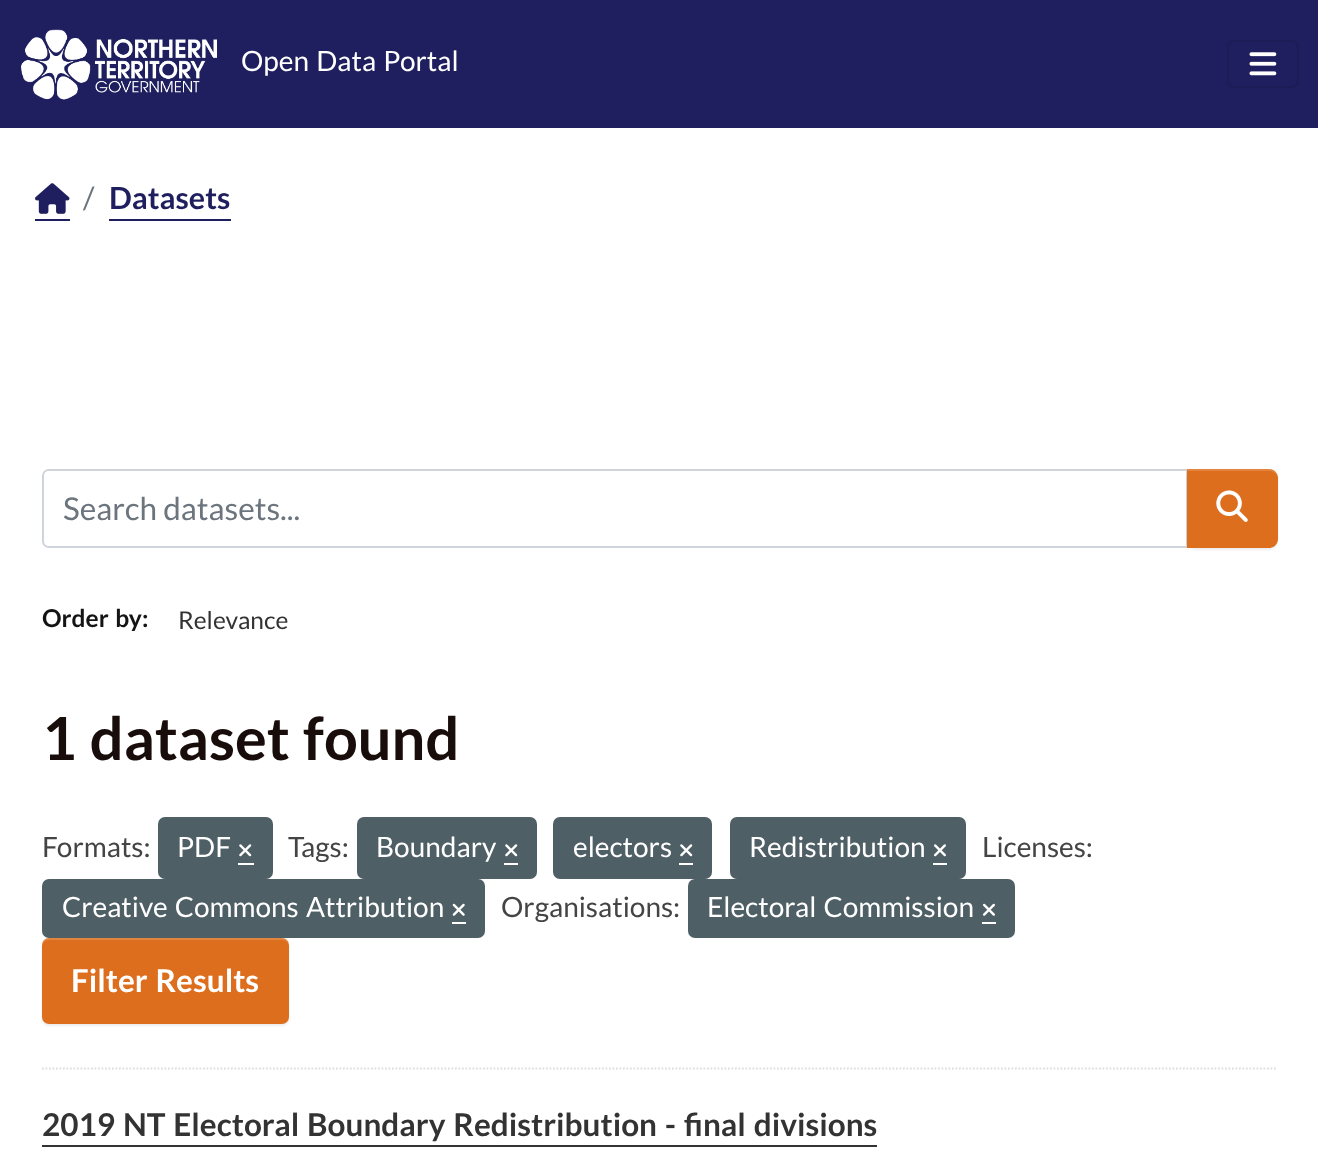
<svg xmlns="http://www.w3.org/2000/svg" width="1318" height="1161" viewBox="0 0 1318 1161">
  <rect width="100%" height="100%" fill="rgb(255,255,255)"/>
  <rect x="0" y="0" width="1318" height="128" fill="rgb(31,31,95)"/>
  <image x="21" y="29" width="196" height="71" href="pic1.png"/>
  <text x="241" y="71" word-spacing="1.75" font-family="Lato" font-size="28" fill="rgb(255,255,255)">Open Data Portal</text>
  <rect x="1228" y="41" width="70" height="46" rx="6" fill="none" stroke="rgb(28,28,86)" stroke-width="2"/>
  <image x="1249" y="52" width="28" height="24" href="pic2.png"/>
  <rect x="35" y="219" width="35" height="2" fill="rgb(31,31,95)"/>
  <image x="35" y="183" width="35" height="31" href="pic3.png"/>
  <text x="83" y="209" font-family="Lato" font-size="30.5" fill="rgb(108,117,125)">/</text>
  <text x="109" y="209" font-family="Lato" font-size="30.5" font-weight="bold" fill="rgb(31,31,95)">Datasets</text>
  <rect x="109" y="219" width="122" height="2" fill="rgb(31,31,95)"/>
  <path d="M42 1068.5H1277.5" fill="none" stroke="rgb(221,221,221)" stroke-width="1.8" stroke-dasharray="1.75 1.75"/>
  <path d="M49 470H1187V547H49C45.5 547 43 544.5 43 541V476C43 472.5 45.5 470 49 470Z" fill="none" stroke="rgb(206,212,218)" stroke-width="2"/>
  <text x="63" y="520" font-family="Lato" font-size="31.5" fill="rgb(108,117,125)">Search datasets...</text>
  <rect x="1187" y="471" width="91" height="79" rx="9" fill="rgba(0,0,0,0.07)" filter="blur(1px)"/>
  <path d="M1187 469H1269C1274 469 1278 473 1278 478V539C1278 544 1274 548 1269 548H1187Z" fill="rgb(221,110,29)"/>
  <path d="M1187 469V471H1269C1274 471 1278 475 1278 479C1278 474 1275 469 1269 469Z" fill="rgba(255,255,255,0.15)"/>
  <image x="1216" y="490" width="32" height="32" href="pic4.png"/>
  <g font-family="Lato" font-size="24.5" font-weight="bold" fill="rgb(20,20,20)">
    <text x="42" y="627" word-spacing="1.75">Order by</text>
    <text x="142" y="627">:</text>
  </g>
  <text x="178" y="629" font-family="Lato" font-size="24.5" fill="rgb(51,51,51)">Relevance</text>
  <text x="42" y="760" word-spacing="1.75" font-family="Lato" font-size="59.5" font-weight="bold" fill="rgb(24,13,10)">1 dataset found</text>
  <text x="42" y="857" font-family="Lato" font-size="28" fill="rgb(68,68,68)">Formats:</text>
  <rect x="158" y="817" width="115" height="62" rx="7" fill="rgb(78,95,101)"/>
  <text x="177" y="857" font-family="Lato" font-size="28" fill="rgb(255,255,255)">PDF</text>
  <rect x="238" y="863" width="16" height="2" fill="rgb(255,255,255)"/>
  <image x="239" y="844" width="13" height="13" href="pic5.png"/>
  <text x="288" y="857" font-family="Lato" font-size="28" fill="rgb(68,68,68)">Tags:</text>
  <rect x="357" y="817" width="180" height="62" rx="7" fill="rgb(78,95,101)"/>
  <text x="376" y="857" font-family="Lato" font-size="28" fill="rgb(255,255,255)">Boundary</text>
  <rect x="504" y="863" width="14" height="2" fill="rgb(255,255,255)"/>
  <image x="505" y="844" width="13" height="13" href="pic5.png"/>
  <rect x="553" y="817" width="159" height="62" rx="7" fill="rgb(78,95,101)"/>
  <text x="573" y="857" font-family="Lato" font-size="28" fill="rgb(255,255,255)">electors</text>
  <rect x="679" y="863" width="14" height="2" fill="rgb(255,255,255)"/>
  <image x="680" y="844" width="13" height="13" href="pic5.png"/>
  <rect x="730" y="817" width="236" height="62" rx="7" fill="rgb(78,95,101)"/>
  <text x="749" y="857" font-family="Lato" font-size="28" fill="rgb(255,255,255)">Redistribution</text>
  <rect x="933" y="863" width="14" height="2" fill="rgb(255,255,255)"/>
  <image x="934" y="844" width="12" height="13" href="pic6.png"/>
  <text x="982" y="857" font-family="Lato" font-size="28" fill="rgb(68,68,68)">Licenses:</text>
  <rect x="42" y="879" width="443" height="59" rx="7" fill="rgb(78,95,101)"/>
  <text x="62" y="917" word-spacing="1.75" font-family="Lato" font-size="28" fill="rgb(255,255,255)">Creative Commons Attribution</text>
  <rect x="452" y="922" width="14" height="2" fill="rgb(255,255,255)"/>
  <image x="452" y="903" width="13" height="13" href="pic7.png"/>
  <text x="501" y="917" font-family="Lato" font-size="28" fill="rgb(68,68,68)">Organisations:</text>
  <rect x="688" y="879" width="327" height="59" rx="7" fill="rgb(78,95,101)"/>
  <text x="707" y="917" word-spacing="1.75" font-family="Lato" font-size="28" fill="rgb(255,255,255)">Electoral Commission</text>
  <rect x="982" y="922" width="14" height="2" fill="rgb(255,255,255)"/>
  <image x="983" y="903" width="12" height="13" href="pic8.png"/>
  <rect x="42" y="940" width="247" height="86" rx="7" fill="rgba(0,0,0,0.07)" filter="blur(1px)"/>
  <rect x="42" y="938" width="247" height="86" rx="7" fill="rgb(221,110,29)"/>
  <path d="M49 940H282C286 940 289 943 289 947V945C289 941 286 938 282 938H49C45 938 42 941 42 945V947C42 943 45 940 49 940Z" fill="rgba(255,255,255,0.15)"/>
  <text x="71" y="992" word-spacing="1.75" font-family="Lato" font-size="31.5" font-weight="bold" fill="rgb(255,255,255)">Filter Results</text>
  <text x="42" y="1136" word-spacing="1.75" font-family="Lato" font-size="31.5" font-weight="bold" fill="rgb(51,51,51)">2019 NT Electoral Boundary Redistribution - final divisions</text>
  <rect x="42" y="1145" width="835" height="2" fill="rgb(51,51,51)"/>
</svg>
